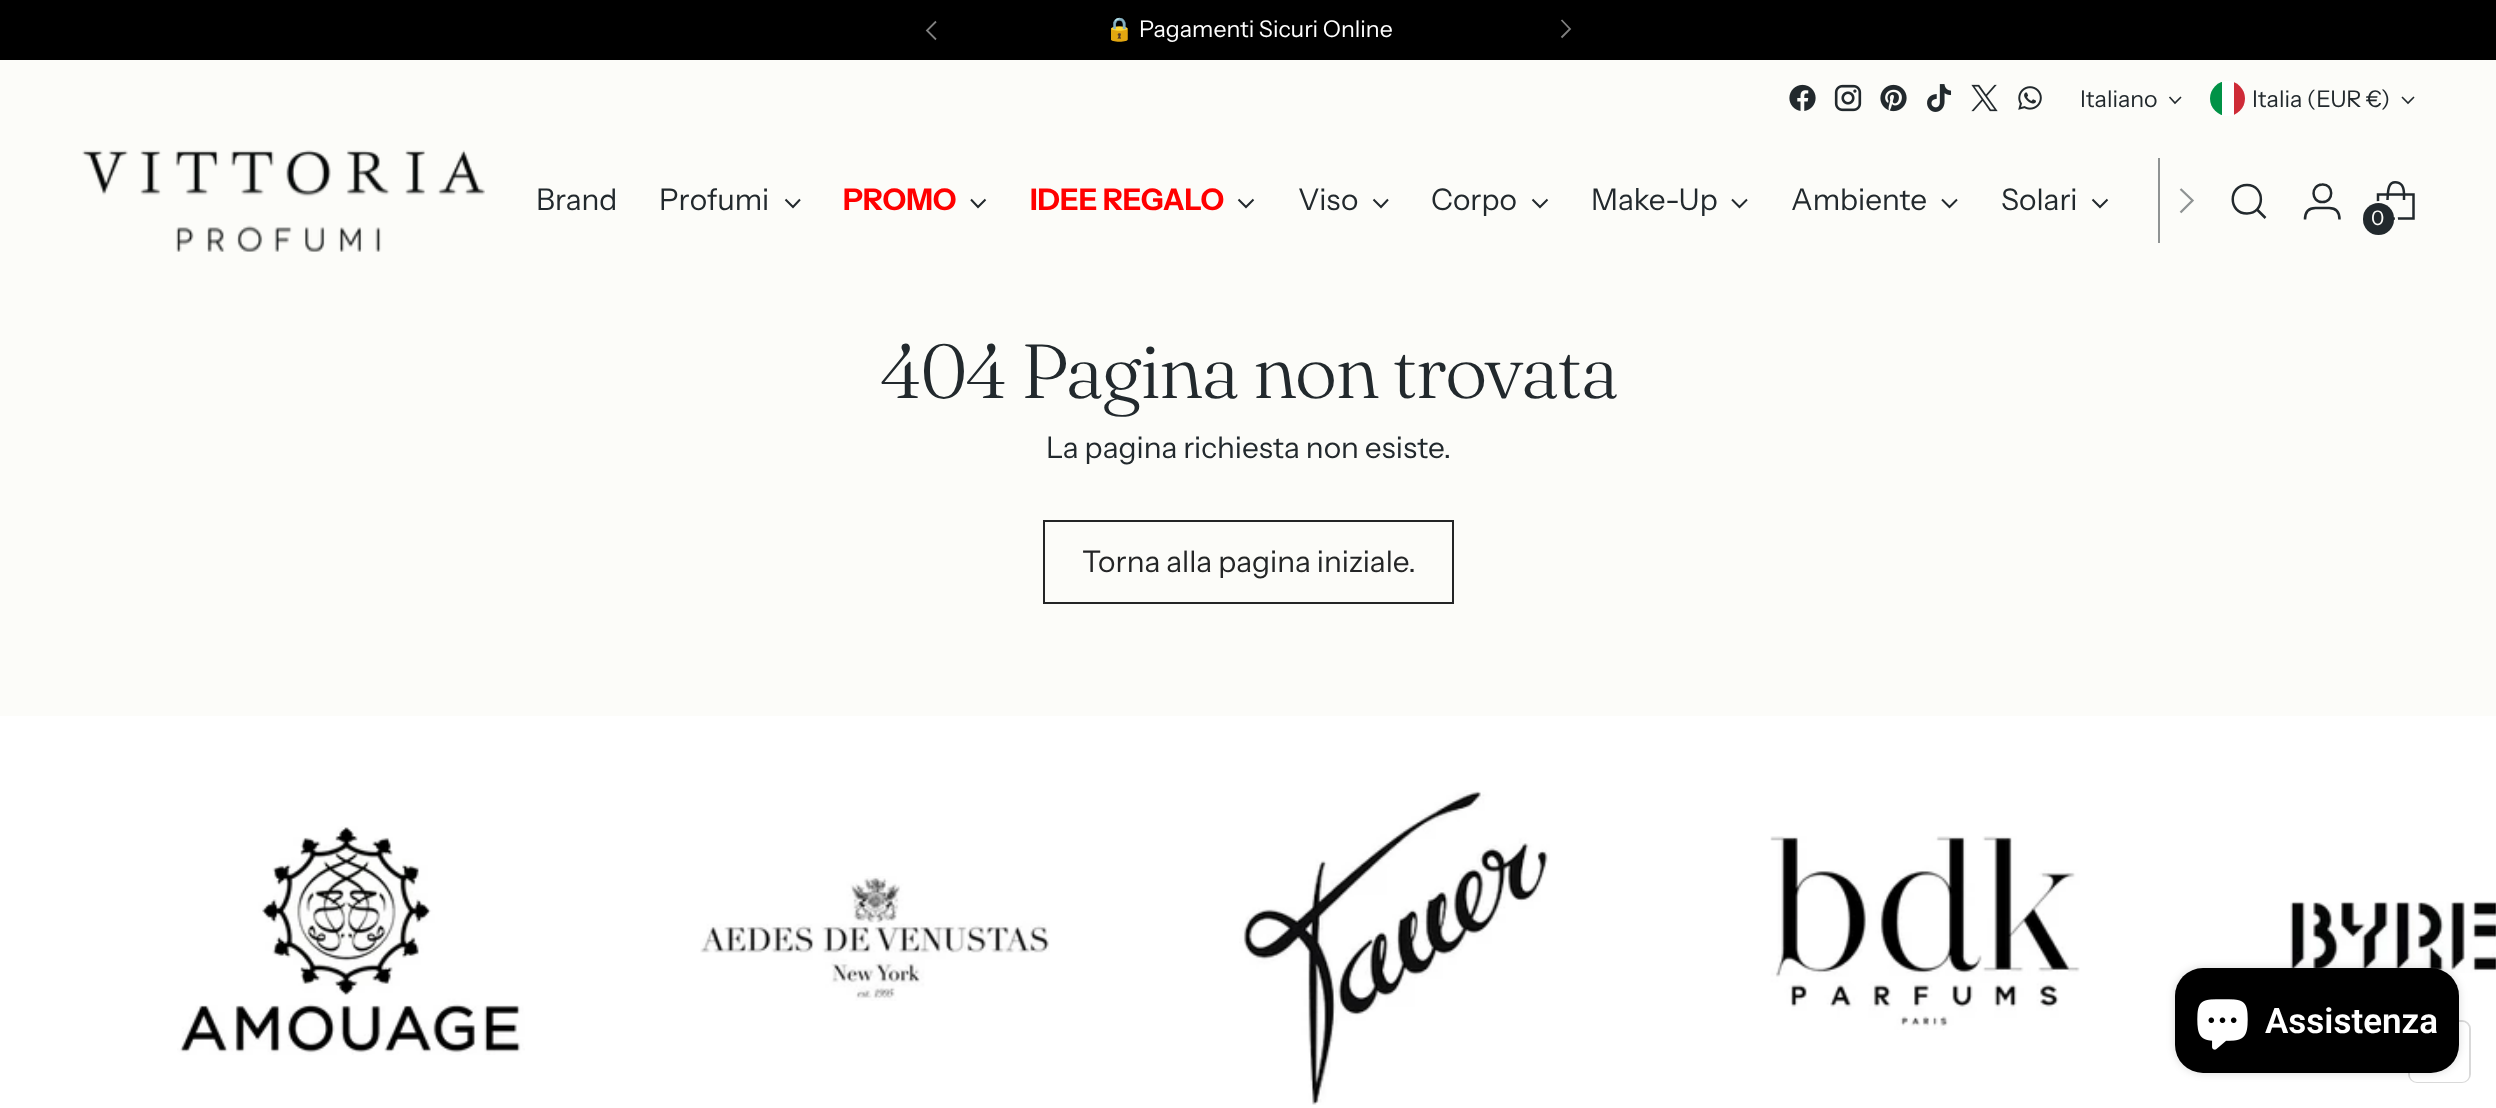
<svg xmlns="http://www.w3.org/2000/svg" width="2496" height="1108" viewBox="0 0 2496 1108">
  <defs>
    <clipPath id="clip1"><rect x="2210" y="81" width="35" height="35" rx="17.5"/></clipPath>
  </defs>
  <rect width="100%" height="100%" fill="rgb(252,252,249)"/>
  <rect x="0" y="0" width="2496" height="60" fill="rgb(0,0,0)"/>
  <text x="1105" y="37" font-family="Noto Color Emoji" font-size="23.1" fill="rgb(255,255,255)">🔒</text>
  <text x="1139" y="37" font-family="Instrument Sans" font-size="23.1" fill="rgb(255,255,255)">Pagamenti Sicuri Online</text>
  <path d="M936 21.5L927 30.5L936 39.5" fill="none" stroke="rgb(128,128,128)" stroke-width="1.8"/>
  <path d="M1561.5 37.5L1570 29L1561.5 20" fill="none" stroke="rgb(128,128,128)" stroke-width="1.8"/>
  <image x="1789" y="84" width="27" height="27" href="pic1.png"/>
  <image x="1834" y="84" width="28" height="28" href="pic2.png"/>
  <image x="1880" y="84" width="27" height="28" href="pic3.png"/>
  <image x="1927" y="84" width="25" height="28" href="pic4.png"/>
  <image x="1971" y="84" width="27" height="28" href="pic5.png"/>
  <image x="2018" y="86" width="24" height="24" href="pic6.png"/>
  <text x="2080" y="107" font-family="Instrument Sans" font-size="23.1" fill="rgb(34,41,45)">Italiano</text>
  <path d="M2169.5 97L2175 103L2181 97" fill="none" stroke="rgb(34,41,45)" stroke-width="1.6"/>
  <circle cx="2227.5" cy="98.5" r="17.5" fill="rgb(255,255,255)"/>
  <g clip-path="url(#clip1)">
    <rect x="2210" y="82" width="12" height="33" fill="rgb(0,146,70)"/>
    <rect x="2234" y="82" width="11" height="33" fill="rgb(206,43,55)"/>
  </g>
  <text x="2252" y="107" font-family="Instrument Sans" font-size="23.1" fill="rgb(34,41,45)">Italia (EUR €)</text>
  <path d="M2402 97L2408 103L2414 97" fill="none" stroke="rgb(34,41,45)" stroke-width="1.6"/>
  <image x="82" y="150" width="403" height="102" href="pic7.png"/>
  <g font-family="Instrument Sans" font-size="29.75" fill="rgb(34,41,45)">
    <text x="536" y="210">Brand</text>
    <text x="659" y="210">Profumi</text>
  </g>
  <path d="M785.5 199.5L793 207L800 199.5" fill="none" stroke="rgb(34,41,45)" stroke-width="2"/>
  <text x="843" y="210" font-family="Instrument Sans" font-size="29.75" font-weight="bold" fill="rgb(255,0,0)">PROMO</text>
  <path d="M971 199.5L978 207L985.5 199.5" fill="none" stroke="rgb(34,41,45)" stroke-width="2"/>
  <text x="1030" y="210" font-family="Instrument Sans" font-size="29.75" font-weight="bold" fill="rgb(255,0,0)">IDEE REGALO</text>
  <path d="M1238.5 199.5L1246 207L1253.5 199.5" fill="none" stroke="rgb(34,41,45)" stroke-width="2"/>
  <text x="1298" y="210" font-family="Instrument Sans" font-size="29.75" fill="rgb(34,41,45)">Viso</text>
  <path d="M1373.5 199.5L1381 207L1388 199.5" fill="none" stroke="rgb(34,41,45)" stroke-width="2"/>
  <text x="1431" y="210" font-family="Instrument Sans" font-size="29.75" fill="rgb(34,41,45)">Corpo</text>
  <path d="M1532.5 199.5L1540 207L1547.5 199.5" fill="none" stroke="rgb(34,41,45)" stroke-width="2"/>
  <text x="1591" y="210" font-family="Instrument Sans" font-size="29.75" fill="rgb(34,41,45)">Make-Up</text>
  <path d="M1732 199.5L1739.5 207L1747 199.5" fill="none" stroke="rgb(34,41,45)" stroke-width="2"/>
  <text x="1791" y="210" font-family="Instrument Sans" font-size="29.75" fill="rgb(34,41,45)">Ambiente</text>
  <path d="M1942 199.5L1949.5 207L1957 199.5" fill="none" stroke="rgb(34,41,45)" stroke-width="2"/>
  <text x="2001" y="210" font-family="Instrument Sans" font-size="29.75" fill="rgb(34,41,45)">Solari</text>
  <path d="M2092.5 199.5L2100 207L2107.5 199.5" fill="none" stroke="rgb(34,41,45)" stroke-width="2"/>
  <rect x="2158" y="158" width="2" height="85" fill="rgb(143,147,147)"/>
  <path d="M2180.5 212.5L2192.5 200.5L2180.5 189" fill="none" stroke="rgb(143,147,147)" stroke-width="2.3"/>
  <path d="M2247 213.5C2265.5 213.5 2265.5 185 2247 185C2228 185 2228 213.5 2247 213.5Z" fill="none" stroke="rgb(34,41,45)" stroke-width="2.5" stroke-linecap="round"/>
  <path d="M2257 209.5L2265.5 218" fill="none" stroke="rgb(34,41,45)" stroke-width="2.5"/>
  <path d="M2322 202C2334.5 202.5 2334 183.5 2322 184.5C2310.5 185 2311 202 2322 202ZM2305 219.5C2305 213 2308 208 2315.5 208H2329C2336.5 208 2339.5 213 2339.5 219.5" fill="none" stroke="rgb(34,41,45)" stroke-width="2.5"/>
  <path d="M2404 200C2404 196 2404.5 191.5 2403 187.5C2402 185 2400 183 2397.5 182.5C2387 180 2388 193.5 2387.5 200" fill="none" stroke="rgb(34,41,45)" stroke-width="2.5" stroke-linejoin="bevel"/>
  <path d="M2413.5 218.5V194.5H2378V218.5Z" fill="none" stroke="rgb(34,41,45)" stroke-width="2.5"/>
  <circle cx="2379.5" cy="219.5" r="17" fill="none" stroke="rgb(252,252,249)" stroke-width="3"/>
  <rect x="2363" y="203" width="31" height="32" rx="15.5" fill="rgb(34,41,45)"/>
  <text x="2371" y="225" font-family="Instrument Sans" font-size="20" fill="rgb(252,252,249)">0</text>
  <text x="880" y="398" font-family="Fraunces" font-size="76.5" font-weight="300" letter-spacing="-1.9" fill="rgb(34,41,45)">404 Pagina non trovata</text>
  <text x="1046" y="458" font-family="Instrument Sans" font-size="29.75" fill="rgb(34,41,45)">La pagina richiesta non esiste.</text>
  <rect x="1044" y="521" width="409" height="82" fill="none" stroke="rgb(36,37,38)" stroke-width="2"/>
  <text x="1082" y="572" font-family="Instrument Sans" font-size="29.75" fill="rgb(36,37,38)">Torna alla pagina iniziale.</text>
  <rect x="0" y="716" width="2496" height="392" fill="rgb(255,255,255)"/>
  <image x="177" y="826" width="348" height="229" href="pic8.png"/>
  <image x="700" y="876" width="350" height="125" href="pic9.png"/>
  <image x="1239" y="790" width="311" height="315" href="pic10.png"/>
  <image x="1770" y="836" width="310" height="194" href="pic11.png"/>
  <image x="2289" y="901" width="207" height="72" href="pic12.png"/>
  <rect x="2409" y="1021" width="61" height="61" rx="8" fill="none" stroke="rgb(217,217,217)" stroke-width="2"/>
  <rect x="2410" y="1022" width="59" height="60" rx="7" fill="rgb(255,255,255)"/>
  <rect x="2175" y="968" width="284" height="105" rx="28" fill="rgba(0,0,0,0.15)" filter="blur(4.5px)"/>
  <rect x="2175" y="968" width="284" height="105" rx="28" fill="rgb(0,0,0)"/>
  <image x="2197" y="999" width="51" height="51" href="pic13.png"/>
  <text x="2265" y="1033" font-family="Roboto" font-size="35" font-weight="600" fill="rgb(255,255,255)">Assistenza</text>
</svg>
